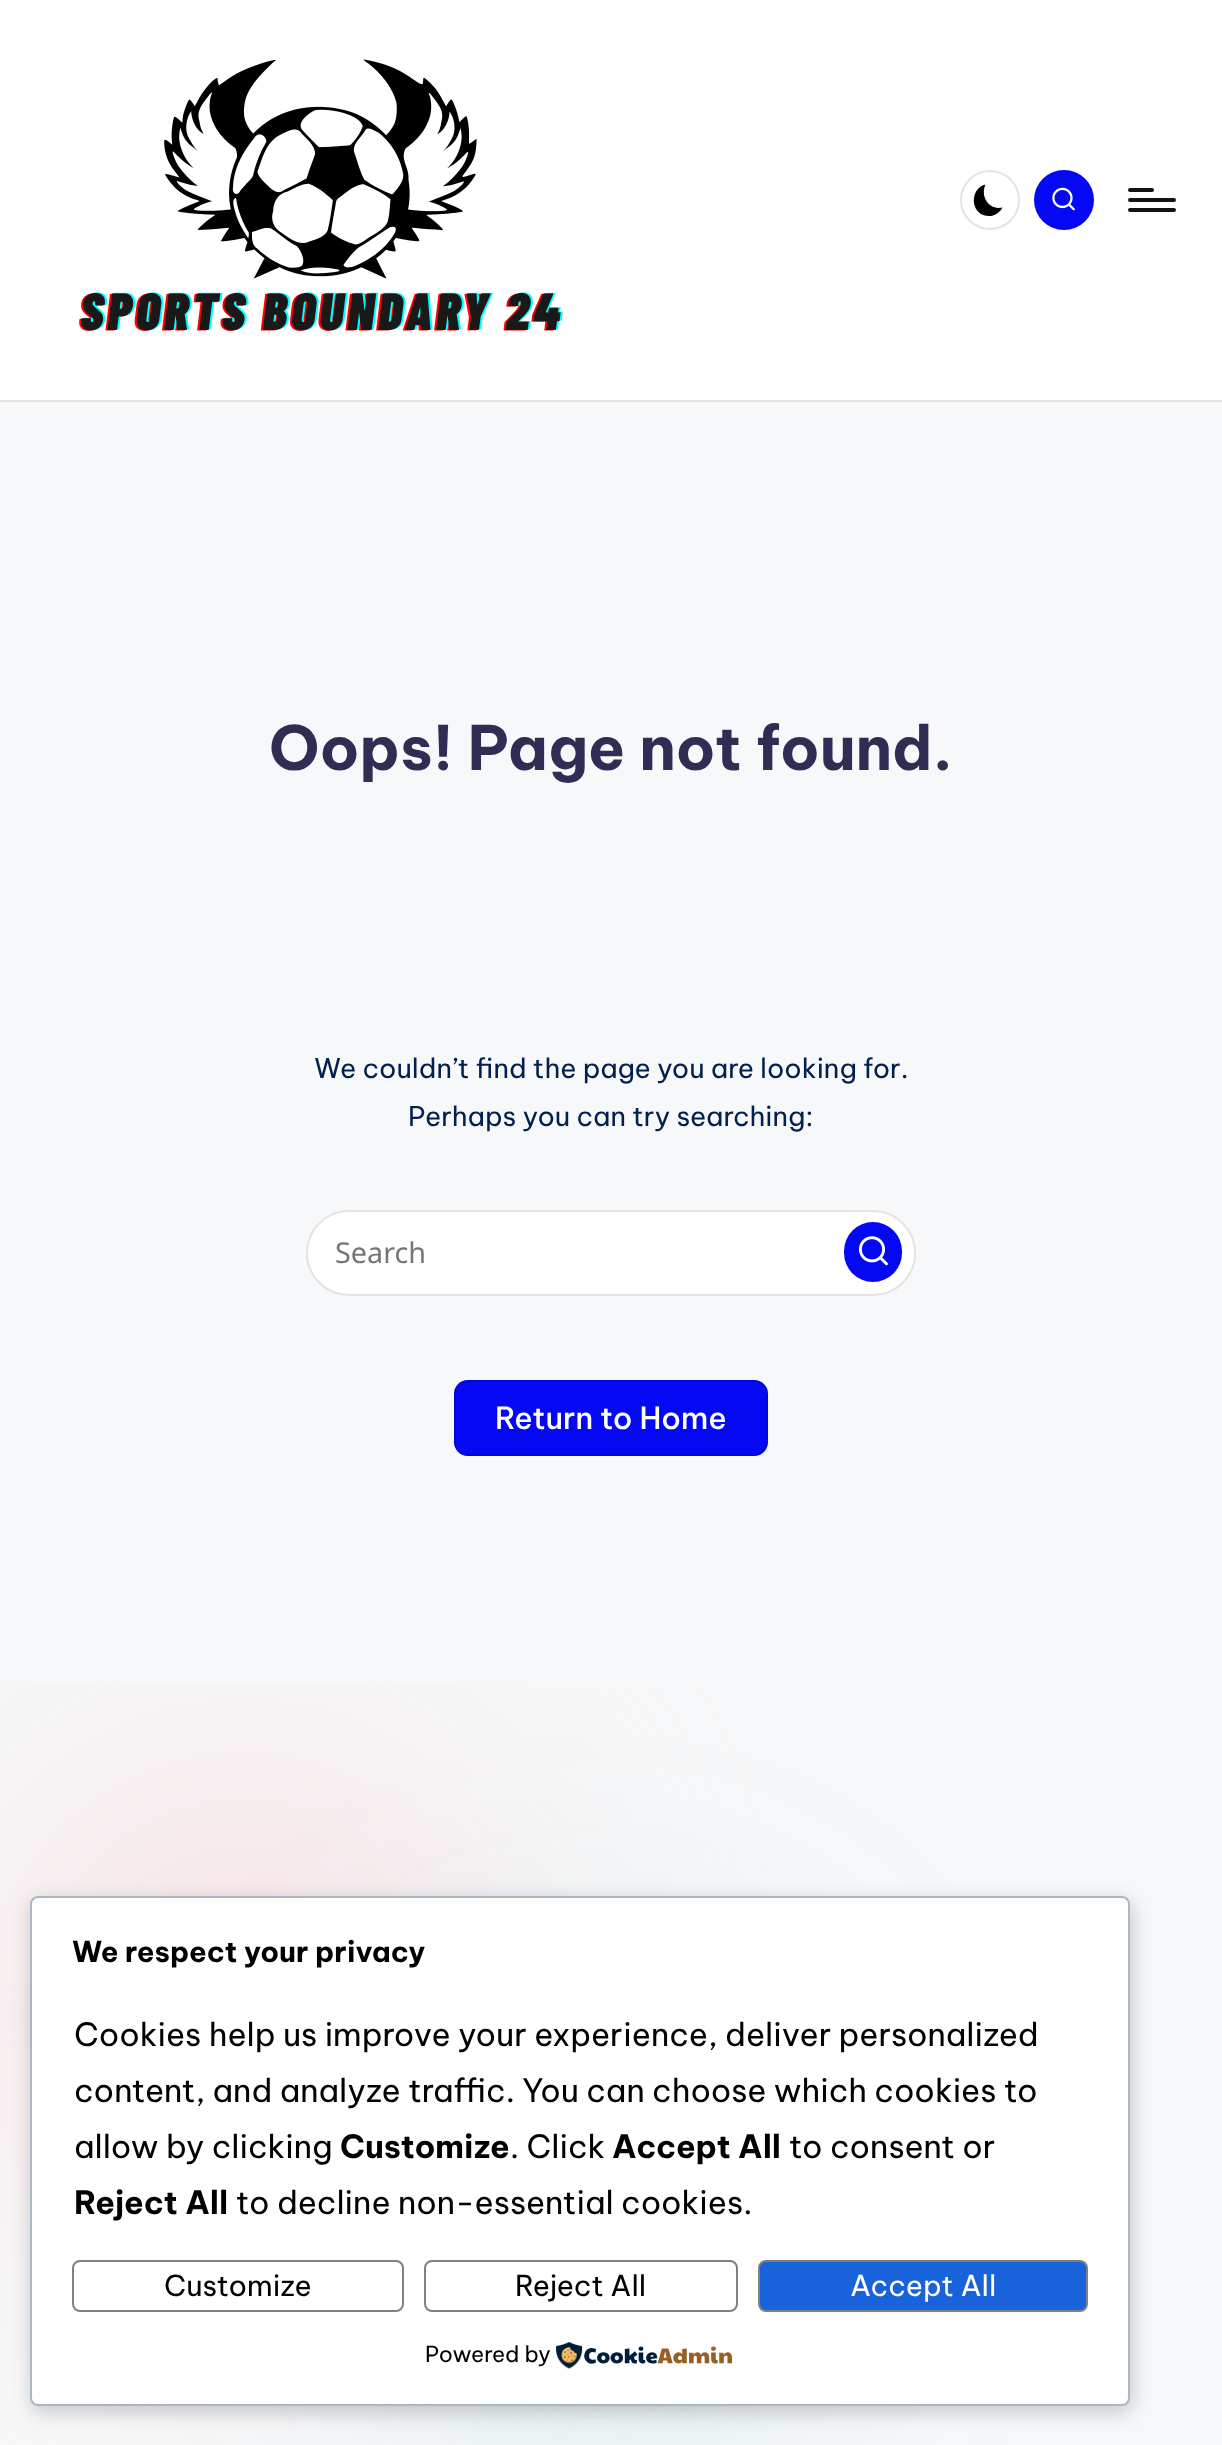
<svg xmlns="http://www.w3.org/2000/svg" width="1222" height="2445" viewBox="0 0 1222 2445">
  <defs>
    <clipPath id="clip1"><rect x="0" y="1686" width="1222" height="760"/></clipPath>
  </defs>
  <rect width="100%" height="100%" fill="rgb(247,248,249)"/>
  <rect x="0" y="0" width="1222" height="400" fill="rgb(255,255,255)"/>
  <rect x="0" y="400" width="1222" height="2" fill="rgb(227,227,227)"/>
  <image x="79" y="59" width="484" height="272" href="pic1.png"/>
  <circle cx="990" cy="200" r="29" fill="none" stroke="rgb(227,227,227)" stroke-width="2"/>
  <path d="M1002.5 207.5C989 210.5 980 196.5 985.5 184.5C971.5 187.5 969.5 209 983 215C986.5 216 990 216.5 993 215.5C997 214 1000.5 211.5 1002.5 207.5Z" fill="rgb(0,0,0)"/>
  <circle cx="1064" cy="200" r="30" fill="rgb(4,8,244)"/>
  <image x="1052" y="187" width="23" height="24" href="pic2.png"/>
  <rect x="1128" y="198" width="48" height="4" rx="2" fill="rgb(19,19,21)"/>
  <rect x="1128" y="188" width="26" height="4" rx="2" fill="rgb(19,19,21)"/>
  <rect x="1128" y="208" width="48" height="4" rx="2" fill="rgb(19,19,21)"/>
  <text x="269" y="770" font-family="Be Vietnam Pro" font-size="61" font-weight="bold" fill="rgb(48,45,85)">Oops! Page not found.</text>
  <g font-family="Be Vietnam Pro" font-size="27.1" fill="rgb(0,32,80)">
    <text x="314" y="1078">We couldn’t find the page you are looking for.</text>
    <text x="408" y="1126">Perhaps you can try searching:</text>
  </g>
  <rect x="306" y="1210" width="610" height="86" rx="43" fill="rgb(255,255,255)"/>
  <rect x="307" y="1211" width="608" height="84" rx="42" fill="none" stroke="rgba(185,185,185,0.4)" stroke-width="2"/>
  <text x="335" y="1263" font-family="Noto Sans" font-size="28.75" fill="rgb(117,117,117)">Search</text>
  <rect x="844" y="1222" width="58" height="60" rx="29" fill="rgb(4,8,244)"/>
  <image x="858" y="1236" width="30" height="30" href="pic3.png"/>
  <g clip-path="url(#clip1)">
    <rect x="0" y="1772" width="488" height="488" rx="244" fill="rgb(247,227,229)" filter="blur(128px)"/>
  </g>
  <rect x="454" y="1380" width="314" height="76" rx="14" fill="rgb(4,8,244)"/>
  <rect x="455" y="1381" width="312" height="74" rx="13" fill="none" stroke="rgba(0,0,0,0.12)" stroke-width="2"/>
  <text x="495" y="1429" font-family="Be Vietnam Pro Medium" font-size="30.5" font-weight="500" fill="rgb(255,255,255)">Return to Home</text>
  <rect x="352" y="1958" width="490" height="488" rx="244" fill="rgba(4,134,139,0.1)" filter="blur(128px)"/>
  <rect x="32" y="1902" width="1100" height="510" rx="8" fill="rgba(0,0,0,0.2)" filter="blur(10px)"/>
  <rect x="31" y="1897" width="1098" height="508" rx="7" fill="rgb(255,255,255)" stroke="rgb(171,184,195)" stroke-width="2"/>
  <text x="72" y="1962" font-family="Be Vietnam Pro" font-size="28.75" font-weight="bold" fill="rgb(0,0,0)">We respect your privacy</text>
  <g font-family="Be Vietnam Pro" font-size="32" fill="rgb(0,0,0)">
    <text>
      <tspan x="74" y="2046">Cookies help us improve your experience, deliver personalized</tspan>
      <tspan x="74" y="2102">content, and analyze traffic. You can choose which cookies to</tspan>
      <tspan x="74" y="2158">allow by clicking</tspan>
    </text>
  </g>
  <text x="340" y="2158" font-family="Be Vietnam Pro" font-size="32" font-weight="bold" fill="rgb(0,0,0)">Customize</text>
  <text x="510" y="2158" font-family="Be Vietnam Pro" font-size="32" fill="rgb(0,0,0)">. Click</text>
  <text x="612" y="2158" font-family="Be Vietnam Pro" font-size="32" font-weight="bold" fill="rgb(0,0,0)">Accept All</text>
  <text x="789" y="2158" font-family="Be Vietnam Pro" font-size="32" fill="rgb(0,0,0)">to consent or</text>
  <text x="74" y="2214" font-family="Be Vietnam Pro" font-size="32" font-weight="bold" fill="rgb(0,0,0)">Reject All</text>
  <text x="236" y="2214" font-family="Be Vietnam Pro" font-size="32" fill="rgb(0,0,0)">to decline non-essential cookies.</text>
  <rect x="73" y="2261" width="330" height="50" rx="7" fill="none" stroke="rgb(128,128,128)" stroke-width="2"/>
  <text x="164" y="2296" font-family="Be Vietnam Pro" font-size="28.75" fill="rgb(0,0,0)">Customize</text>
  <rect x="425" y="2261" width="312" height="50" rx="7" fill="none" stroke="rgb(128,128,128)" stroke-width="2"/>
  <text x="515" y="2296" font-family="Be Vietnam Pro" font-size="28.75" fill="rgb(0,0,0)">Reject All</text>
  <rect x="759" y="2261" width="328" height="50" rx="7" fill="rgb(24,99,220)" stroke="rgb(128,128,128)" stroke-width="2"/>
  <text x="850" y="2296" font-family="Be Vietnam Pro" font-size="28.75" fill="rgb(255,255,255)">Accept All</text>
  <text x="425" y="2362" font-family="Be Vietnam Pro" font-size="22" fill="rgb(0,0,0)">Powered by</text>
  <image x="556" y="2342" width="177" height="27" href="pic4.png"/>
</svg>
